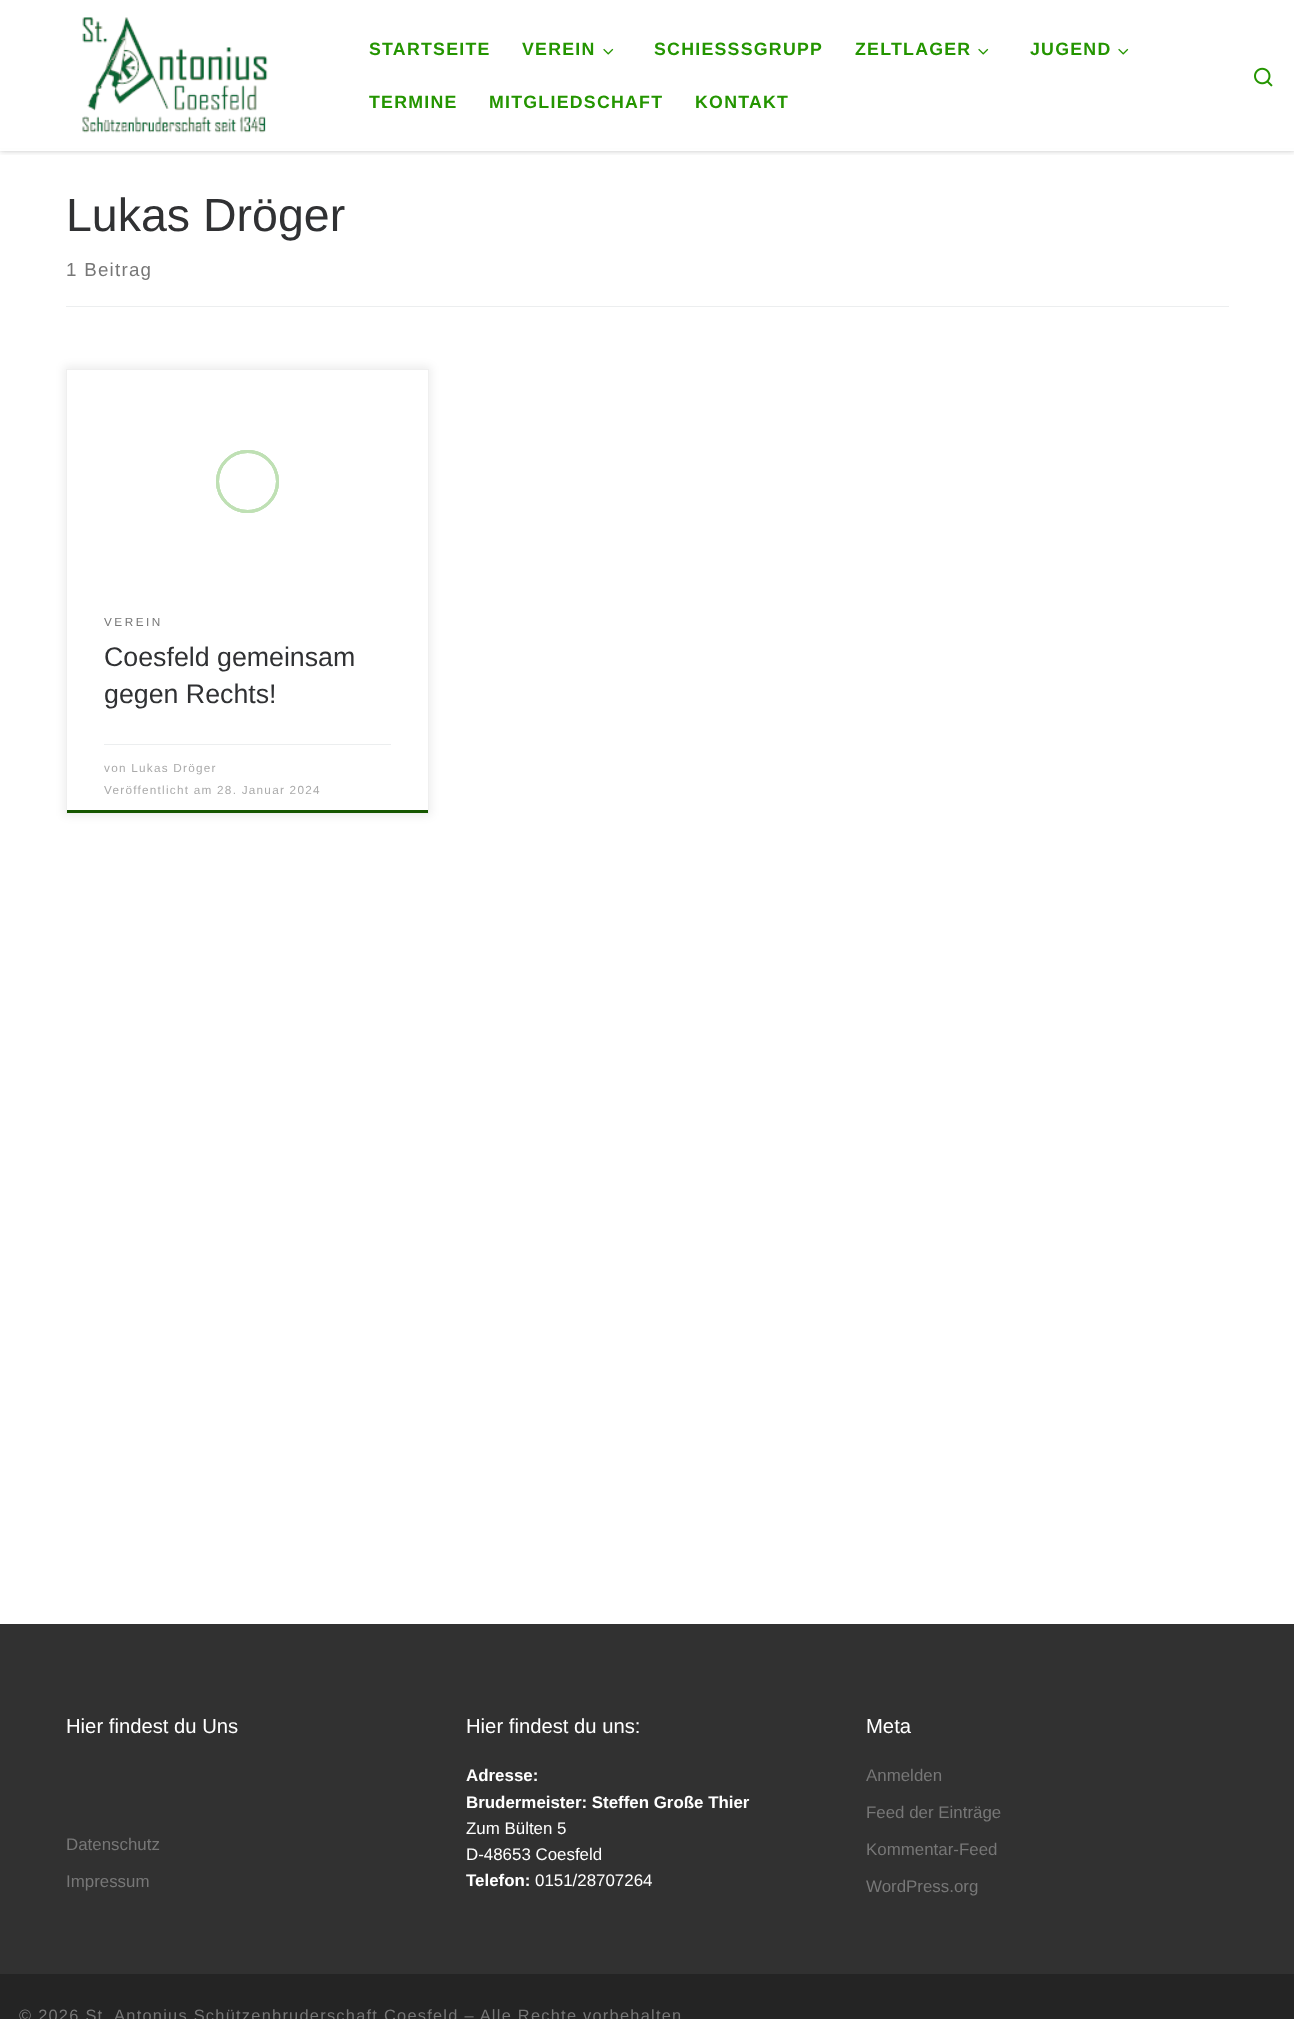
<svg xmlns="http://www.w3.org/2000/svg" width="1294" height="2019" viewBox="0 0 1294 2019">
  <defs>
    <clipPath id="clip1"><rect x="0" y="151" width="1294" height="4"/></clipPath>
  </defs>
  <rect width="100%" height="100%" fill="rgb(255,255,255)"/>
  <rect x="0" y="-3" width="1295" height="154" fill="rgba(102,102,102,0.08)" filter="blur(1px)"/>
  <rect x="0" y="0" width="1294" height="148" fill="rgb(255,255,255)"/>
  <rect x="0" y="148" width="1294" height="1" fill="rgb(235,245,232)"/>
  <g clip-path="url(#clip1)">
    <rect x="0" y="0" width="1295" height="151" fill="rgba(0,0,0,0.2)" filter="blur(3px)"/>
  </g>
  <rect x="0" y="148" width="1294" height="3" fill="rgba(255,255,255,0.9)"/>
  <image x="82" y="17" width="186" height="116" href="pic1.png"/>
  <g font-family="Liberation Sans" font-size="17.75" font-weight="bold" letter-spacing="1.25" fill="rgb(36,149,0)">
    <text x="369" y="55">STARTSEITE</text>
    <text x="522" y="55">VEREIN</text>
  </g>
  <image x="603" y="48" width="11" height="7" href="pic2.png"/>
  <g font-family="Liberation Sans" font-size="17.75" font-weight="bold" letter-spacing="1.25" fill="rgb(36,149,0)">
    <text x="654" y="55">SCHIESSSGRUPP</text>
    <text x="855" y="55">ZELTLAGER</text>
  </g>
  <image x="978" y="48" width="11" height="7" href="pic2.png"/>
  <text x="1030" y="55" font-family="Liberation Sans" font-size="17.75" font-weight="bold" letter-spacing="1.25" fill="rgb(36,149,0)">JUGEND</text>
  <image x="1118" y="48" width="11" height="7" href="pic2.png"/>
  <g font-family="Liberation Sans" font-size="17.75" font-weight="bold" letter-spacing="1.25" fill="rgb(36,149,0)">
    <text x="369" y="108">TERMINE</text>
    <text x="489" y="108">MITGLIEDSCHAFT</text>
    <text x="695" y="108">KONTAKT</text>
  </g>
  <image x="1254" y="67" width="19" height="20" href="pic3.png"/>
  <text x="66" y="231" font-family="Liberation Sans" font-size="46.5" fill="rgb(48,49,51)">Lukas Dröger</text>
  <text x="66" y="276" font-family="Liberation Sans" font-size="18.75" letter-spacing="1.25" fill="rgb(119,119,119)">1 Beitrag</text>
  <rect x="66" y="306" width="1163" height="1" fill="rgb(236,238,239)"/>
  <rect x="64" y="366" width="367" height="450" fill="rgba(0,0,0,0.07)" filter="blur(4px)"/>
  <rect x="67" y="370" width="361" height="440" fill="rgb(255,255,255)"/>
  <rect x="66" y="810" width="363" height="3" fill="rgb(22,87,0)"/>
  <rect x="66.5" y="369.5" width="362" height="444" fill="none" stroke="rgb(239,239,239)"/>
  <circle cx="247.5" cy="481.5" r="30" fill="none" stroke="rgb(191,224,180)" stroke-width="3"/>
  <circle cx="247.5" cy="481.5" r="30" fill="none" stroke="rgb(191,224,180)" stroke-width="3"/>
  <circle cx="247.5" cy="481.5" r="30" fill="none" stroke="rgb(191,224,180)" stroke-width="3"/>
  <text x="104" y="626" font-family="Liberation Sans" font-size="11.75" letter-spacing="2.5" fill="rgb(119,119,119)">VEREIN</text>
  <g font-family="Liberation Sans" font-size="26.75" fill="rgb(48,49,51)">
    <text>
      <tspan x="104" y="666">Coesfeld gemeinsam</tspan>
      <tspan x="104" y="703">gegen Rechts!</tspan>
    </text>
  </g>
  <rect x="104" y="744" width="287" height="1" fill="rgb(236,238,239)"/>
  <g font-family="Liberation Sans" font-size="11.75" letter-spacing="1.25" fill="rgb(170,170,170)">
    <text>
      <tspan x="104" y="772">von Lukas Dröger</tspan>
      <tspan x="104" y="794">Veröffentlicht am 28. Januar 2024</tspan>
    </text>
  </g>
  <rect x="0" y="1624" width="1294" height="350" fill="rgb(49,49,49)"/>
  <text x="66" y="1733" font-family="Liberation Sans" font-size="20.25" fill="rgb(255,255,255)">Hier findest du Uns</text>
  <g font-family="Liberation Sans" font-size="16.9" fill="rgb(119,119,119)">
    <text x="66" y="1850">Datenschutz</text>
    <text x="66" y="1887">Impressum</text>
  </g>
  <text x="466" y="1733" font-family="Liberation Sans" font-size="20.25" fill="rgb(255,255,255)">Hier findest du uns:</text>
  <g font-family="Liberation Sans" font-size="16.9" font-weight="bold" fill="rgb(255,255,255)">
    <text>
      <tspan x="466" y="1781">Adresse:</tspan>
      <tspan x="466" y="1808">Brudermeister: Steffen Große Thier</tspan>
    </text>
  </g>
  <g font-family="Liberation Sans" font-size="16.9" fill="rgb(255,255,255)">
    <text>
      <tspan x="466" y="1834">Zum Bülten 5</tspan>
      <tspan x="466" y="1860">D-48653 Coesfeld</tspan>
    </text>
  </g>
  <text x="466" y="1886" font-family="Liberation Sans" font-size="16.9" font-weight="bold" fill="rgb(255,255,255)">Telefon:</text>
  <text x="535" y="1886" font-family="Liberation Sans" font-size="16.9" fill="rgb(255,255,255)">0151/28707264</text>
  <text x="866" y="1733" font-family="Liberation Sans" font-size="20.25" fill="rgb(255,255,255)">Meta</text>
  <g font-family="Liberation Sans" font-size="16.9" fill="rgb(119,119,119)">
    <text x="866" y="1781">Anmelden</text>
    <text x="866" y="1818">Feed der Einträge</text>
    <text x="866" y="1855">Kommentar-Feed</text>
    <text x="866" y="1892">WordPress.org</text>
  </g>
  <rect x="0" y="1974" width="1294" height="45" fill="rgb(36,36,36)"/>
  <text x="19" y="2021" font-family="Liberation Sans" font-size="16.4" letter-spacing="1.25" fill="rgb(119,119,119)">© 2026 St. Antonius Schützenbruderschaft Coesfeld – Alle Rechte vorbehalten</text>
</svg>
